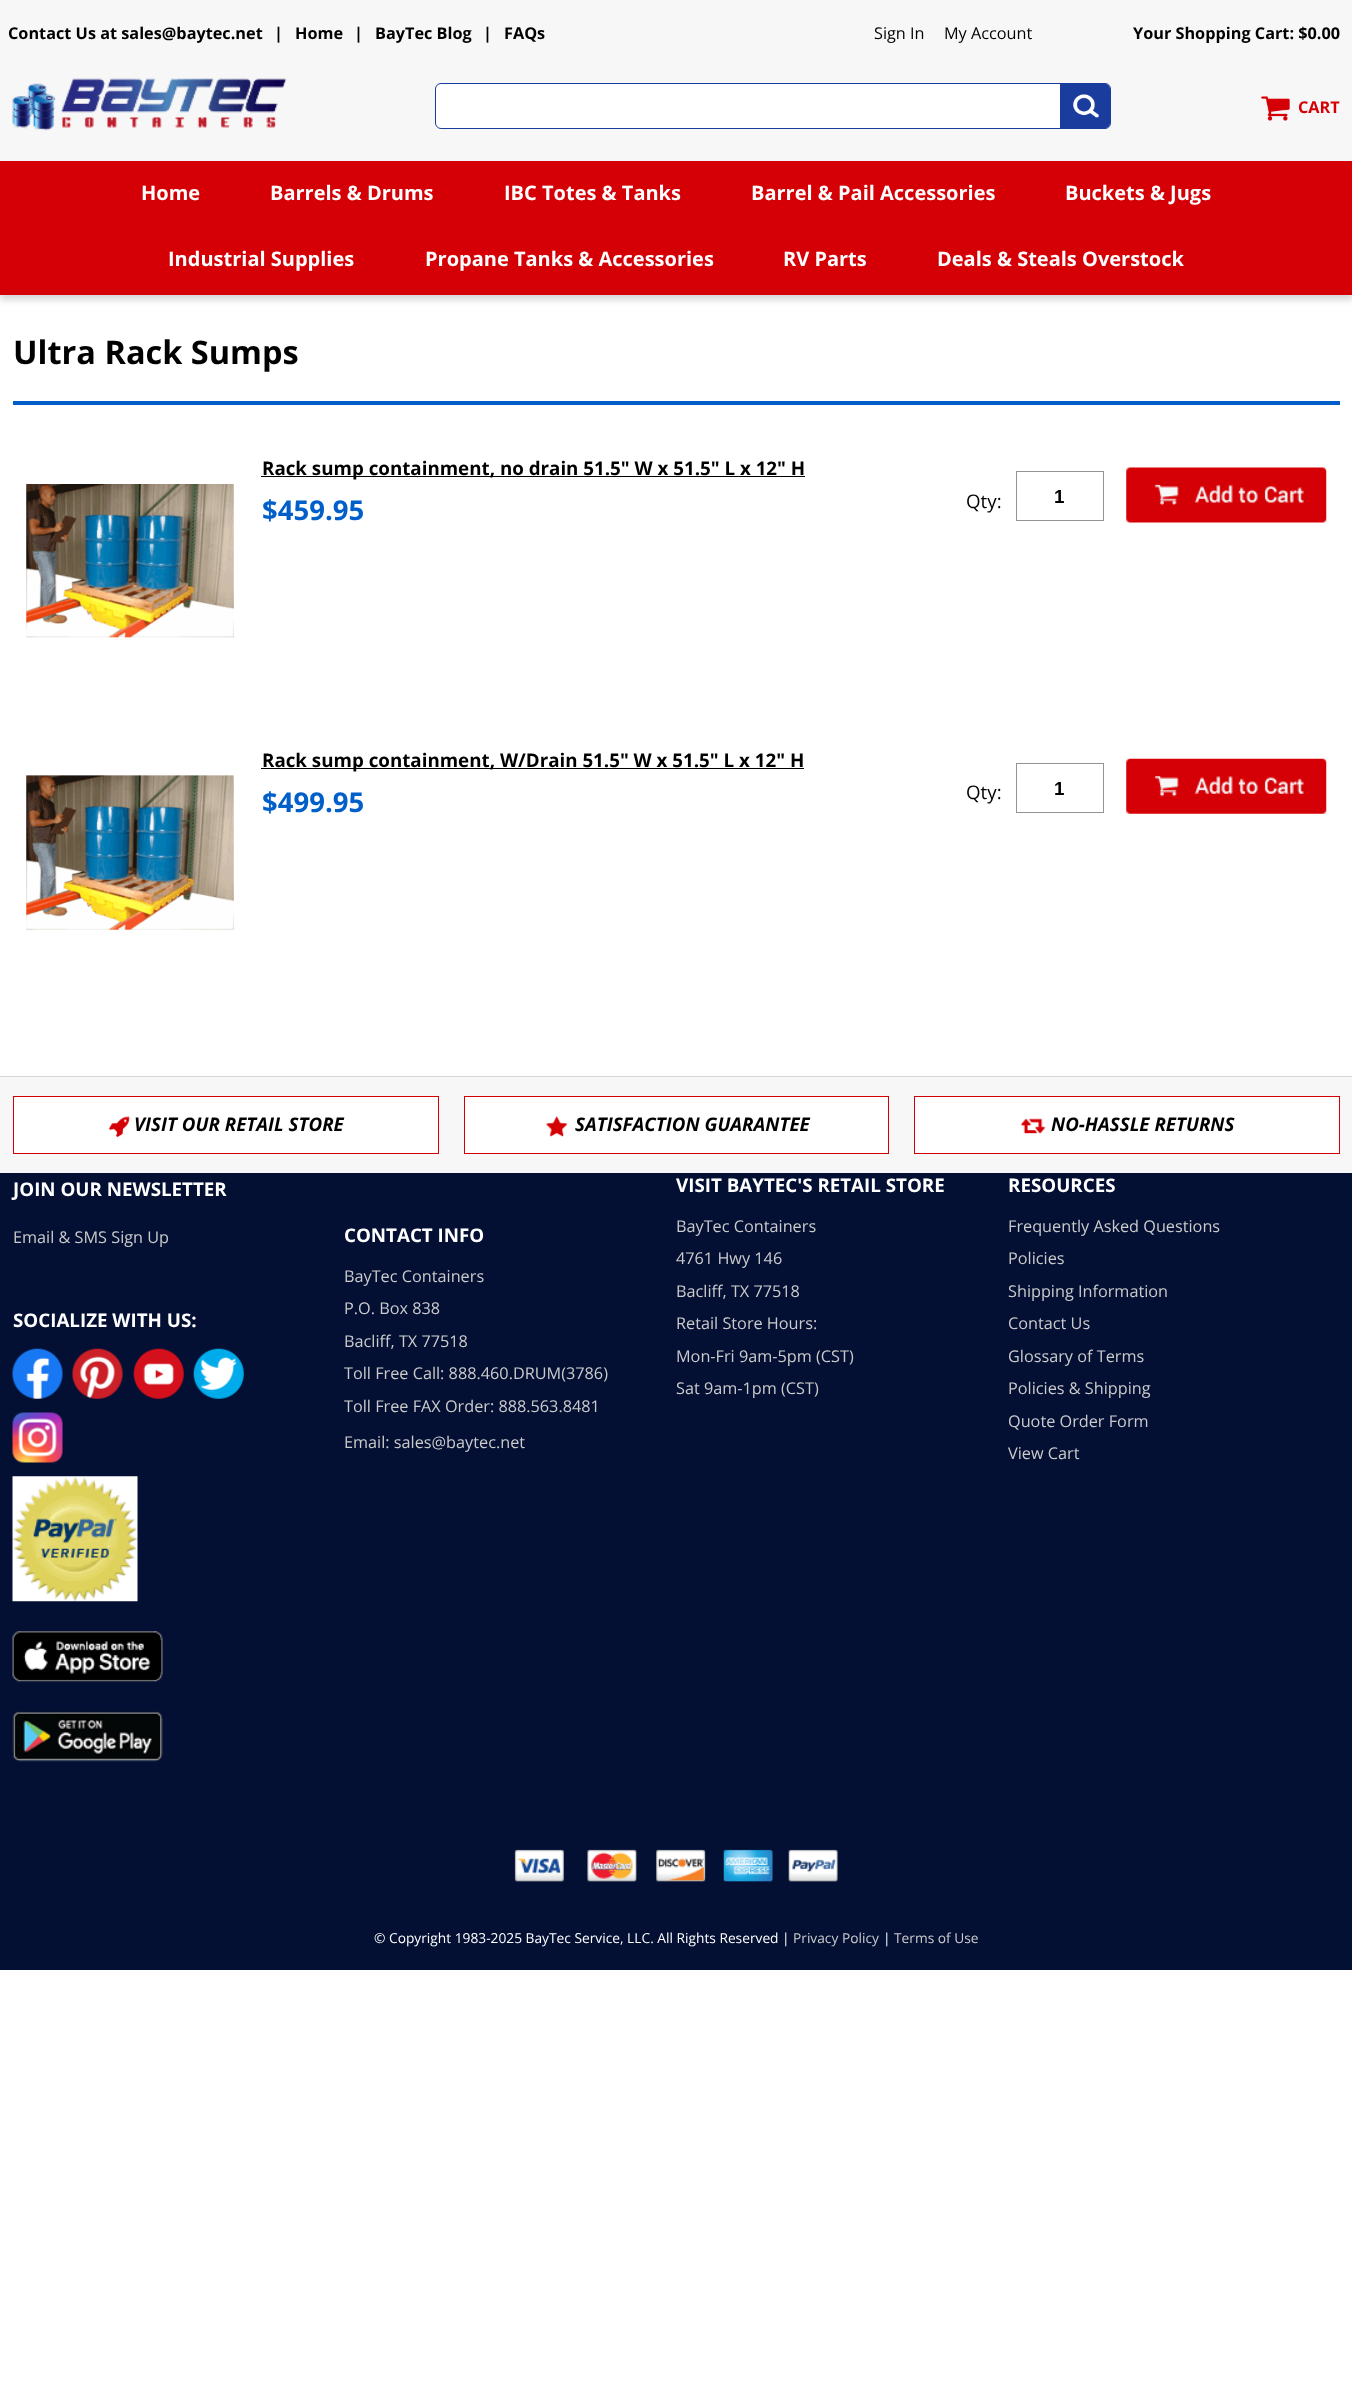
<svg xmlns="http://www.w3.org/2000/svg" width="1352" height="2385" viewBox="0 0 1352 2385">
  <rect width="100%" height="100%" fill="rgb(255,255,255)"/>
  <rect x="0" y="0" width="1352" height="161" fill="rgb(248,247,247)"/>
  <g font-family="Open Sans" font-size="16.25" font-weight="bold" fill="rgb(0,0,0)">
    <text x="8" y="39">Contact Us at sales@baytec.net</text>
    <text x="274" y="39">|</text>
    <text x="295" y="39">Home</text>
    <text x="354" y="39">|</text>
    <text x="375" y="39">BayTec Blog</text>
    <text x="483" y="39">|</text>
    <text x="504" y="39">FAQs</text>
  </g>
  <g font-family="Open Sans" font-size="16.25" fill="rgb(0,0,0)">
    <text x="874" y="39">Sign In</text>
    <text x="944" y="39">My Account</text>
  </g>
  <text x="1133" y="39" font-family="Open Sans" font-size="16.25" font-weight="bold" fill="rgb(0,0,0)">Your Shopping Cart: $0.00</text>
  <image x="12" y="78" width="275" height="53" href="pic1.png"/>
  <rect x="435.5" y="83.5" width="675" height="45" rx="5.5" fill="rgb(255,255,255)" stroke="rgb(26,60,157)"/>
  <path d="M1060 84H1105C1108 84 1110 86 1110 89V123C1110 126 1108 128 1105 128H1060Z" fill="rgb(26,60,157)"/>
  <image x="1073" y="94" width="26" height="24" href="pic2.png"/>
  <image x="1261" y="96" width="29" height="25" href="pic3.png"/>
  <text x="1298" y="113" font-family="Open Sans" font-size="16.25" font-weight="bold" fill="rgb(213,0,5)">CART</text>
  <rect x="0" y="166" width="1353" height="134" fill="rgba(170,170,170,0.48)" filter="blur(3px)"/>
  <rect x="0" y="161" width="1352" height="134" fill="rgb(213,0,5)"/>
  <g font-family="Open Sans" font-size="20" font-weight="bold" fill="rgb(255,255,255)">
    <text x="141" y="200">Home</text>
    <text x="270" y="200">Barrels &amp; Drums</text>
    <text x="504" y="200">IBC Totes &amp; Tanks</text>
    <text x="751" y="200">Barrel &amp; Pail Accessories</text>
    <text x="1065" y="200">Buckets &amp; Jugs</text>
    <text x="168" y="266">Industrial Supplies</text>
    <text x="425" y="266">Propane Tanks &amp; Accessories</text>
    <text x="783" y="266">RV Parts</text>
    <text x="937" y="266">Deals &amp; Steals Overstock</text>
  </g>
  <text x="13" y="364" font-family="Open Sans" font-size="32.5" font-weight="bold" fill="rgb(0,0,0)">Ultra Rack Sumps</text>
  <rect x="13" y="401" width="1327" height="4" fill="rgb(0,95,201)"/>
  <image x="26" y="484" width="208" height="154" href="pic4.png"/>
  <rect x="261" y="476" width="544" height="1" fill="rgb(0,0,0)"/>
  <text x="262" y="475" font-family="Open Sans" font-size="18.75" font-weight="bold" fill="rgb(0,0,0)">Rack sump containment, no drain 51.5" W x 51.5" L x 12" H</text>
  <text x="262" y="520" font-family="Open Sans" font-size="27.5" font-weight="bold" fill="rgb(0,95,201)">$459.95</text>
  <text x="966" y="508" font-family="Open Sans" font-size="18.75" fill="rgb(0,0,0)">Qty:</text>
  <rect x="1016.5" y="471.5" width="87" height="49" fill="none" stroke="rgb(147,147,147)"/>
  <text x="1054" y="503" font-family="Liberation Sans" font-size="18.75" font-weight="bold" fill="rgb(0,0,0)">1</text>
  <image x="1126" y="467" width="201" height="56" href="pic5.png"/>
  <image x="26" y="775" width="208" height="155" href="pic6.png"/>
  <rect x="261" y="768" width="543" height="1" fill="rgb(0,0,0)"/>
  <text x="262" y="767" font-family="Open Sans" font-size="18.75" font-weight="bold" fill="rgb(0,0,0)">Rack sump containment, W/Drain 51.5" W x 51.5" L x 12" H</text>
  <text x="262" y="812" font-family="Open Sans" font-size="27.5" font-weight="bold" fill="rgb(0,95,201)">$499.95</text>
  <text x="966" y="799" font-family="Open Sans" font-size="18.75" fill="rgb(0,0,0)">Qty:</text>
  <rect x="1016.5" y="763.5" width="87" height="49" fill="none" stroke="rgb(147,147,147)"/>
  <text x="1054" y="795" font-family="Liberation Sans" font-size="18.75" font-weight="bold" fill="rgb(0,0,0)">1</text>
  <image x="1126" y="758" width="201" height="56" href="pic7.png"/>
  <rect x="0" y="1173" width="1352" height="797" fill="rgb(3,16,52)"/>
  <rect x="0" y="1077" width="1352" height="96" fill="rgb(248,247,247)"/>
  <rect x="0" y="1076" width="1352" height="1" fill="rgb(214,214,214)"/>
  <rect x="13.5" y="1096.5" width="425" height="57" fill="rgb(255,255,255)" stroke="rgb(213,0,5)"/>
  <image x="108" y="1116" width="22" height="22" href="pic8.png"/>
  <text x="134" y="1131" font-family="Open Sans" font-size="18.75" font-weight="bold" font-style="italic" fill="rgb(0,0,0)">VISIT OUR RETAIL STORE</text>
  <rect x="464.5" y="1096.5" width="424" height="57" fill="rgb(255,255,255)" stroke="rgb(213,0,5)"/>
  <image x="546" y="1116" width="22" height="21" href="pic9.png"/>
  <text x="575" y="1131" font-family="Open Sans" font-size="18.75" font-weight="bold" font-style="italic" fill="rgb(0,0,0)">SATISFACTION GUARANTEE</text>
  <rect x="914.5" y="1096.5" width="425" height="57" fill="rgb(255,255,255)" stroke="rgb(213,0,5)"/>
  <image x="1020" y="1118" width="26" height="16" href="pic10.png"/>
  <text x="1051" y="1131" font-family="Open Sans" font-size="18.75" font-weight="bold" font-style="italic" fill="rgb(0,0,0)">NO-HASSLE RETURNS</text>
  <text x="13" y="1196" font-family="Open Sans" font-size="18.75" font-weight="bold" fill="rgb(255,255,255)">JOIN OUR NEWSLETTER</text>
  <text x="13" y="1243" font-family="Open Sans" font-size="16.25" fill="rgb(203,203,203)">Email &amp; SMS Sign Up</text>
  <text x="13" y="1327" font-family="Open Sans" font-size="18.75" font-weight="bold" fill="rgb(255,255,255)">SOCIALIZE WITH US:</text>
  <image x="12" y="1348" width="51" height="51" href="pic11.png"/>
  <image x="72" y="1348" width="51" height="51" href="pic12.png"/>
  <image x="133" y="1348" width="51" height="51" href="pic13.png"/>
  <image x="193" y="1348" width="51" height="51" href="pic14.png"/>
  <image x="12" y="1412" width="51" height="51" href="pic15.png"/>
  <image x="12" y="1476" width="126" height="126" href="pic16.png"/>
  <image x="12" y="1631" width="151" height="51" href="pic17.png"/>
  <image x="12" y="1711" width="151" height="51" href="pic18.png"/>
  <text x="344" y="1242" font-family="Open Sans" font-size="18.75" font-weight="bold" fill="rgb(255,255,255)">CONTACT INFO</text>
  <g font-family="Open Sans" font-size="16.25" fill="rgb(203,203,203)">
    <text>
      <tspan x="344" y="1282">BayTec Containers</tspan>
      <tspan x="344" y="1314">P.O. Box 838</tspan>
    </text>
    <text>
      <tspan x="344" y="1347">Bacliff, TX 77518</tspan>
      <tspan x="344" y="1379">Toll Free Call: 888.460.DRUM(3786)</tspan>
    </text>
    <text x="344" y="1412">Toll Free FAX Order: 888.563.8481</text>
    <text x="344" y="1448">Email: sales@baytec.net</text>
  </g>
  <text x="676" y="1192" font-family="Open Sans" font-size="18.75" font-weight="bold" fill="rgb(255,255,255)">VISIT BAYTEC'S RETAIL STORE</text>
  <g font-family="Open Sans" font-size="16.25" fill="rgb(203,203,203)">
    <text>
      <tspan x="676" y="1232">BayTec Containers</tspan>
      <tspan x="676" y="1264">4761 Hwy 146</tspan>
    </text>
    <text>
      <tspan x="676" y="1297">Bacliff, TX 77518</tspan>
      <tspan x="676" y="1329">Retail Store Hours:</tspan>
    </text>
    <text>
      <tspan x="676" y="1362">Mon-Fri 9am-5pm (CST)</tspan>
      <tspan x="676" y="1394">Sat 9am-1pm (CST)</tspan>
    </text>
  </g>
  <text x="1008" y="1192" font-family="Open Sans" font-size="18.75" font-weight="bold" fill="rgb(255,255,255)">RESOURCES</text>
  <g font-family="Open Sans" font-size="16.25" fill="rgb(203,203,203)">
    <text>
      <tspan x="1008" y="1232">Frequently Asked Questions</tspan>
      <tspan x="1008" y="1264">Policies</tspan>
    </text>
    <text>
      <tspan x="1008" y="1297">Shipping Information</tspan>
      <tspan x="1008" y="1329">Contact Us</tspan>
    </text>
    <text>
      <tspan x="1008" y="1362">Glossary of Terms</tspan>
      <tspan x="1008" y="1394">Policies &amp; Shipping</tspan>
    </text>
    <text>
      <tspan x="1008" y="1427">Quote Order Form</tspan>
      <tspan x="1008" y="1459">View Cart</tspan>
    </text>
  </g>
  <image x="514" y="1849" width="324" height="33" href="pic19.png"/>
  <text x="374" y="1943" font-family="Open Sans" font-size="13.75" fill="rgb(255,255,255)">© Copyright 1983-2025 BayTec Service, LLC. All Rights Reserved |</text>
  <text x="793" y="1943" font-family="Open Sans" font-size="13.75" fill="rgb(203,203,203)">Privacy Policy</text>
  <text x="883" y="1943" font-family="Open Sans" font-size="13.75" fill="rgb(255,255,255)">|</text>
  <text x="894" y="1943" font-family="Open Sans" font-size="13.75" fill="rgb(203,203,203)">Terms of Use</text>
</svg>
